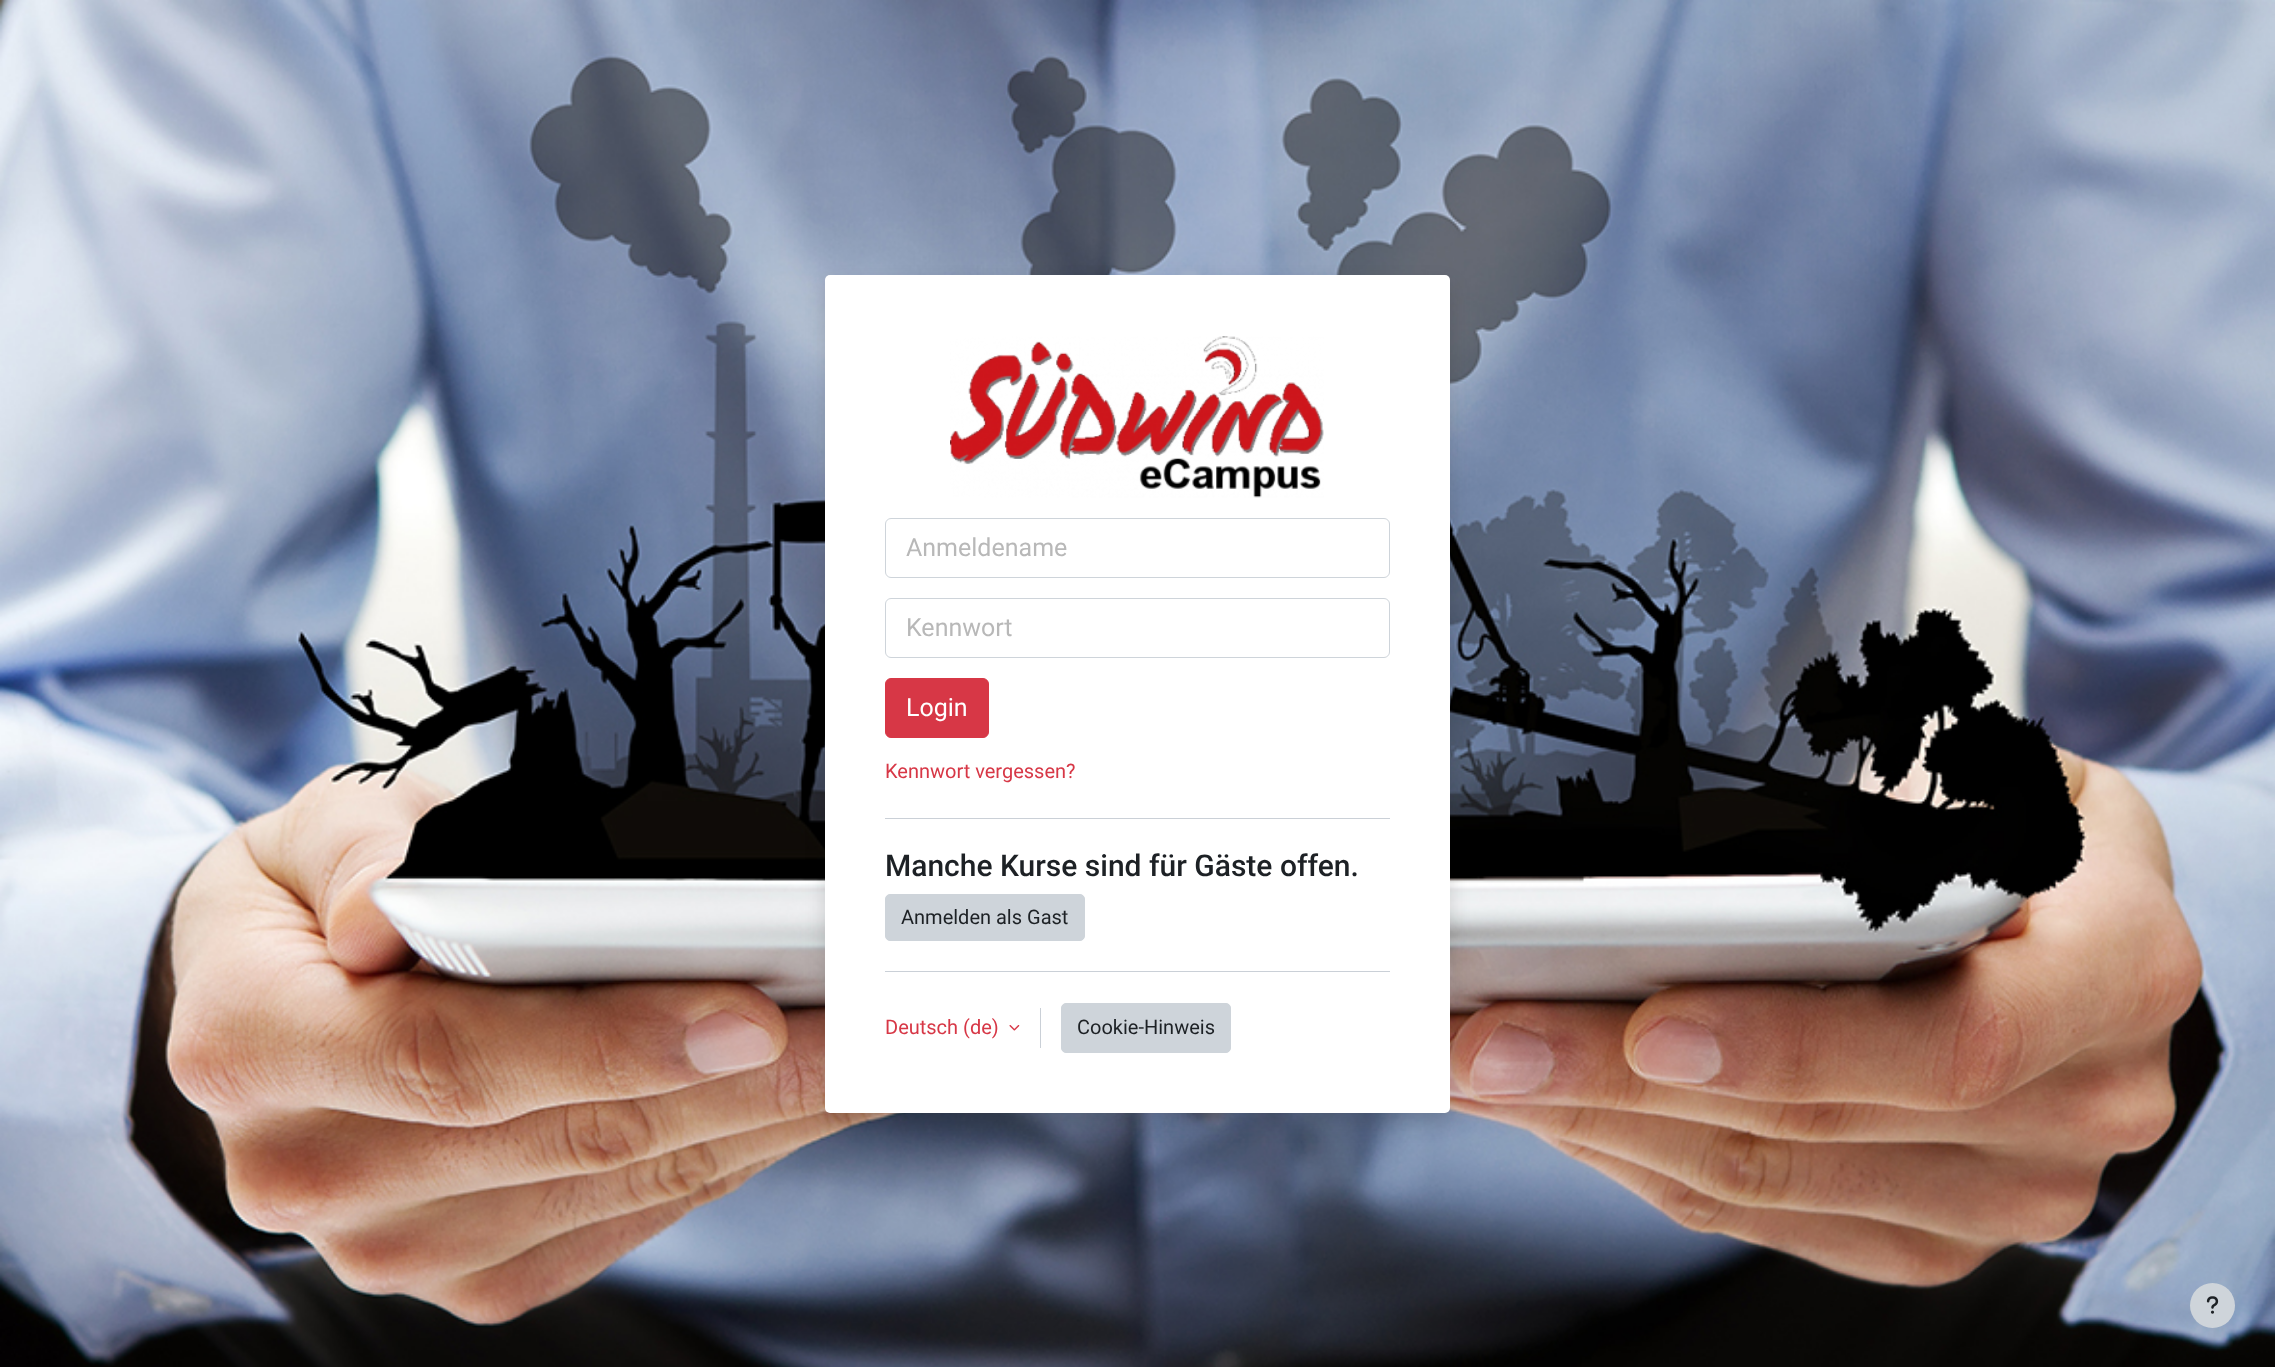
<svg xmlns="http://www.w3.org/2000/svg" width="2275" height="1367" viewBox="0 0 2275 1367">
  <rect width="100%" height="100%" fill="rgb(255,255,255)"/>
  <image x="0" y="0" width="2275" height="1367" href="pic1.png"/>
  <rect x="825" y="285" width="625" height="838" rx="5" fill="rgba(0,0,0,0.15)" filter="blur(10px)"/>
  <rect x="825" y="275" width="625" height="838" rx="5" fill="rgb(255,255,255)"/>
  <image x="950" y="336" width="374" height="162" href="pic2.png"/>
  <rect x="885.5" y="518.5" width="504" height="59" rx="5.5" fill="none" stroke="rgb(206,212,218)"/>
  <text x="906" y="556" font-family="Roboto" font-size="25" fill="rgb(184,184,184)">Anmeldename</text>
  <rect x="885.5" y="598.5" width="504" height="59" rx="5.5" fill="none" stroke="rgb(206,212,218)"/>
  <text x="906" y="636" font-family="Roboto" font-size="25" fill="rgb(184,184,184)">Kennwort</text>
  <rect x="885.5" y="678.5" width="103" height="59" rx="5.5" fill="rgb(215,55,70)" stroke="rgb(215,55,70)"/>
  <text x="906" y="716" font-family="Roboto" font-size="25" fill="rgb(255,255,255)">Login</text>
  <text x="885" y="778" font-family="Roboto" font-size="20" fill="rgb(215,55,70)">Kennwort vergessen?</text>
  <rect x="885" y="818" width="505" height="1" fill="rgb(202,208,215)"/>
  <text x="885" y="876" font-family="Roboto" font-size="30" font-weight="500" fill="rgb(29,33,37)">Manche Kurse sind für Gäste offen.</text>
  <rect x="885.5" y="894.5" width="199" height="46" rx="4.5" fill="rgb(206,212,218)" stroke="rgb(206,212,218)"/>
  <text x="901" y="924" font-family="Roboto" font-size="20" fill="rgb(29,33,37)">Anmelden als Gast</text>
  <rect x="885" y="971" width="505" height="1" fill="rgb(202,208,215)"/>
  <text x="885" y="1034" font-family="Roboto" font-size="20" fill="rgb(215,55,70)">Deutsch (de)</text>
  <image x="1009" y="1025" width="11" height="6" href="pic3.png"/>
  <rect x="1040" y="1008" width="1" height="40" fill="rgb(202,208,215)"/>
  <rect x="1061.5" y="1003.5" width="169" height="49" rx="4.5" fill="rgb(206,212,218)" stroke="rgb(206,212,218)"/>
  <text x="1077" y="1034" font-family="Roboto" font-size="20" fill="rgb(29,33,37)">Cookie-Hinweis</text>
  <circle cx="2212.5" cy="1305.5" r="22.5" fill="rgb(206,212,218)"/>
  <image x="2206" y="1296" width="13" height="18" href="pic4.png"/>
</svg>
